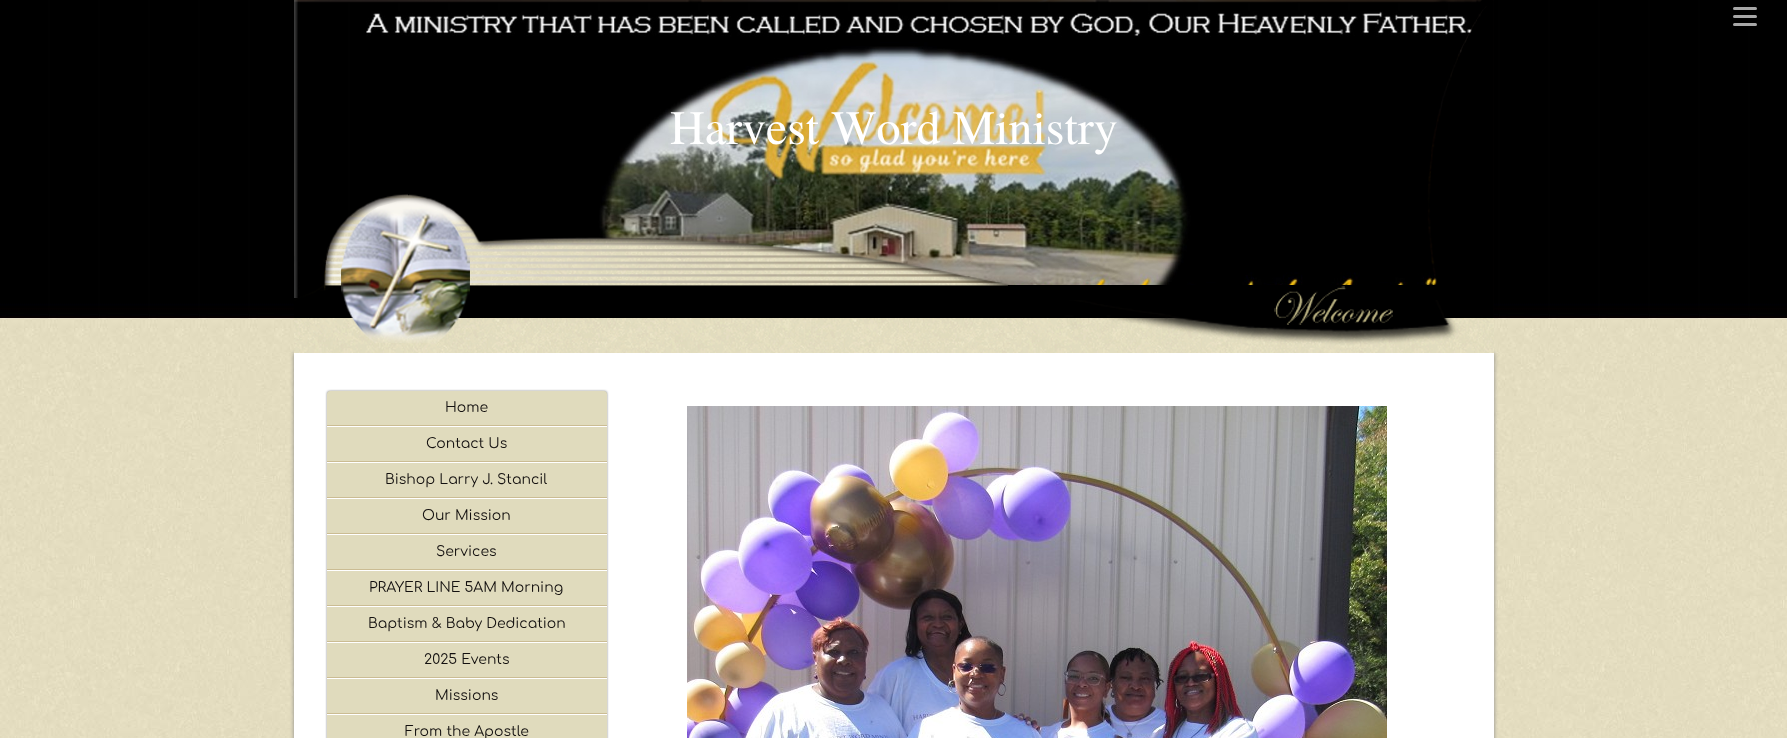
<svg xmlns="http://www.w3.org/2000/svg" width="1787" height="738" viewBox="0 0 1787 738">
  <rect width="100%" height="100%" fill="rgb(255,255,255)"/>
  <image x="0" y="353" width="1787" height="385" href="pic1.png"/>
  <image x="0" y="0" width="1787" height="353" href="pic2.png"/>
  <image x="361" y="11" width="1112" height="275" href="pic3.png"/>
  <rect x="294" y="353" width="1200" height="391" fill="rgb(136,136,136)" filter="blur(2px)"/>
  <image x="294" y="0" width="1200" height="353" href="pic4.png"/>
  <rect x="1733" y="7" width="24" height="3" rx="1.5" fill="rgb(167,167,167)"/>
  <rect x="1733" y="15" width="24" height="3" rx="1.5" fill="rgb(167,167,167)"/>
  <rect x="1733" y="23" width="24" height="3" rx="1.5" fill="rgb(167,167,167)"/>
  <text x="670" y="144" font-family="TeX Gyre Termes" font-size="48" fill="rgb(255,255,255)">Harvest Word Ministry</text>
  <rect x="294" y="353" width="1200" height="385" fill="rgb(255,255,255)"/>
  <rect x="327" y="391" width="280" height="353" rx="3" fill="rgb(136,136,136)" filter="blur(1px)"/>
  <path d="M330 391H604C605.5 391 607 392.5 607 394V426H327V394C327 392.5 328.5 391 330 391Z" fill="rgb(224,219,189)"/>
  <rect x="327" y="425" width="280" height="1" fill="rgb(203,188,147)"/>
  <text x="445" y="412" font-family="Comfortaa" font-size="14" fill="rgb(20,17,16)">Home</text>
  <rect x="327" y="427" width="280" height="34" fill="rgb(224,219,189)"/>
  <rect x="327" y="426" width="280" height="1" fill="rgb(255,255,255)"/>
  <rect x="327" y="461" width="280" height="1" fill="rgb(203,188,147)"/>
  <text x="426" y="448" font-family="Comfortaa" font-size="14" fill="rgb(20,17,16)">Contact Us</text>
  <rect x="327" y="463" width="280" height="34" fill="rgb(224,219,189)"/>
  <rect x="327" y="462" width="280" height="1" fill="rgb(255,255,255)"/>
  <rect x="327" y="497" width="280" height="1" fill="rgb(203,188,147)"/>
  <text x="385" y="484" font-family="Comfortaa" font-size="14" fill="rgb(20,17,16)">Bishop Larry J. Stancil</text>
  <rect x="327" y="499" width="280" height="34" fill="rgb(224,219,189)"/>
  <rect x="327" y="498" width="280" height="1" fill="rgb(255,255,255)"/>
  <rect x="327" y="533" width="280" height="1" fill="rgb(203,188,147)"/>
  <text x="422" y="520" font-family="Comfortaa" font-size="14" fill="rgb(20,17,16)">Our Mission</text>
  <rect x="327" y="535" width="280" height="34" fill="rgb(224,219,189)"/>
  <rect x="327" y="534" width="280" height="1" fill="rgb(255,255,255)"/>
  <rect x="327" y="569" width="280" height="1" fill="rgb(203,188,147)"/>
  <text x="436" y="556" font-family="Comfortaa" font-size="14" fill="rgb(20,17,16)">Services</text>
  <rect x="327" y="571" width="280" height="34" fill="rgb(224,219,189)"/>
  <rect x="327" y="570" width="280" height="1" fill="rgb(255,255,255)"/>
  <rect x="327" y="605" width="280" height="1" fill="rgb(203,188,147)"/>
  <text x="369" y="592" font-family="Comfortaa" font-size="14" fill="rgb(20,17,16)">PRAYER LINE 5AM Morning</text>
  <rect x="327" y="607" width="280" height="34" fill="rgb(224,219,189)"/>
  <rect x="327" y="606" width="280" height="1" fill="rgb(255,255,255)"/>
  <rect x="327" y="641" width="280" height="1" fill="rgb(203,188,147)"/>
  <text x="368" y="628" font-family="Comfortaa" font-size="14" fill="rgb(20,17,16)">Baptism &amp; Baby Dedication</text>
  <rect x="327" y="643" width="280" height="34" fill="rgb(224,219,189)"/>
  <rect x="327" y="642" width="280" height="1" fill="rgb(255,255,255)"/>
  <rect x="327" y="677" width="280" height="1" fill="rgb(203,188,147)"/>
  <text x="424" y="664" font-family="Comfortaa" font-size="14" fill="rgb(20,17,16)">2025 Events</text>
  <rect x="327" y="679" width="280" height="34" fill="rgb(224,219,189)"/>
  <rect x="327" y="678" width="280" height="1" fill="rgb(255,255,255)"/>
  <rect x="327" y="713" width="280" height="1" fill="rgb(203,188,147)"/>
  <text x="435" y="700" font-family="Comfortaa" font-size="14" fill="rgb(20,17,16)">Missions</text>
  <rect x="327" y="715" width="280" height="23" fill="rgb(224,219,189)"/>
  <rect x="327" y="714" width="280" height="1" fill="rgb(255,255,255)"/>
  <text x="405" y="736" font-family="Comfortaa" font-size="14" fill="rgb(20,17,16)">From the Apostle</text>
  <image x="687" y="406" width="700" height="332" href="pic5.png"/>
</svg>
